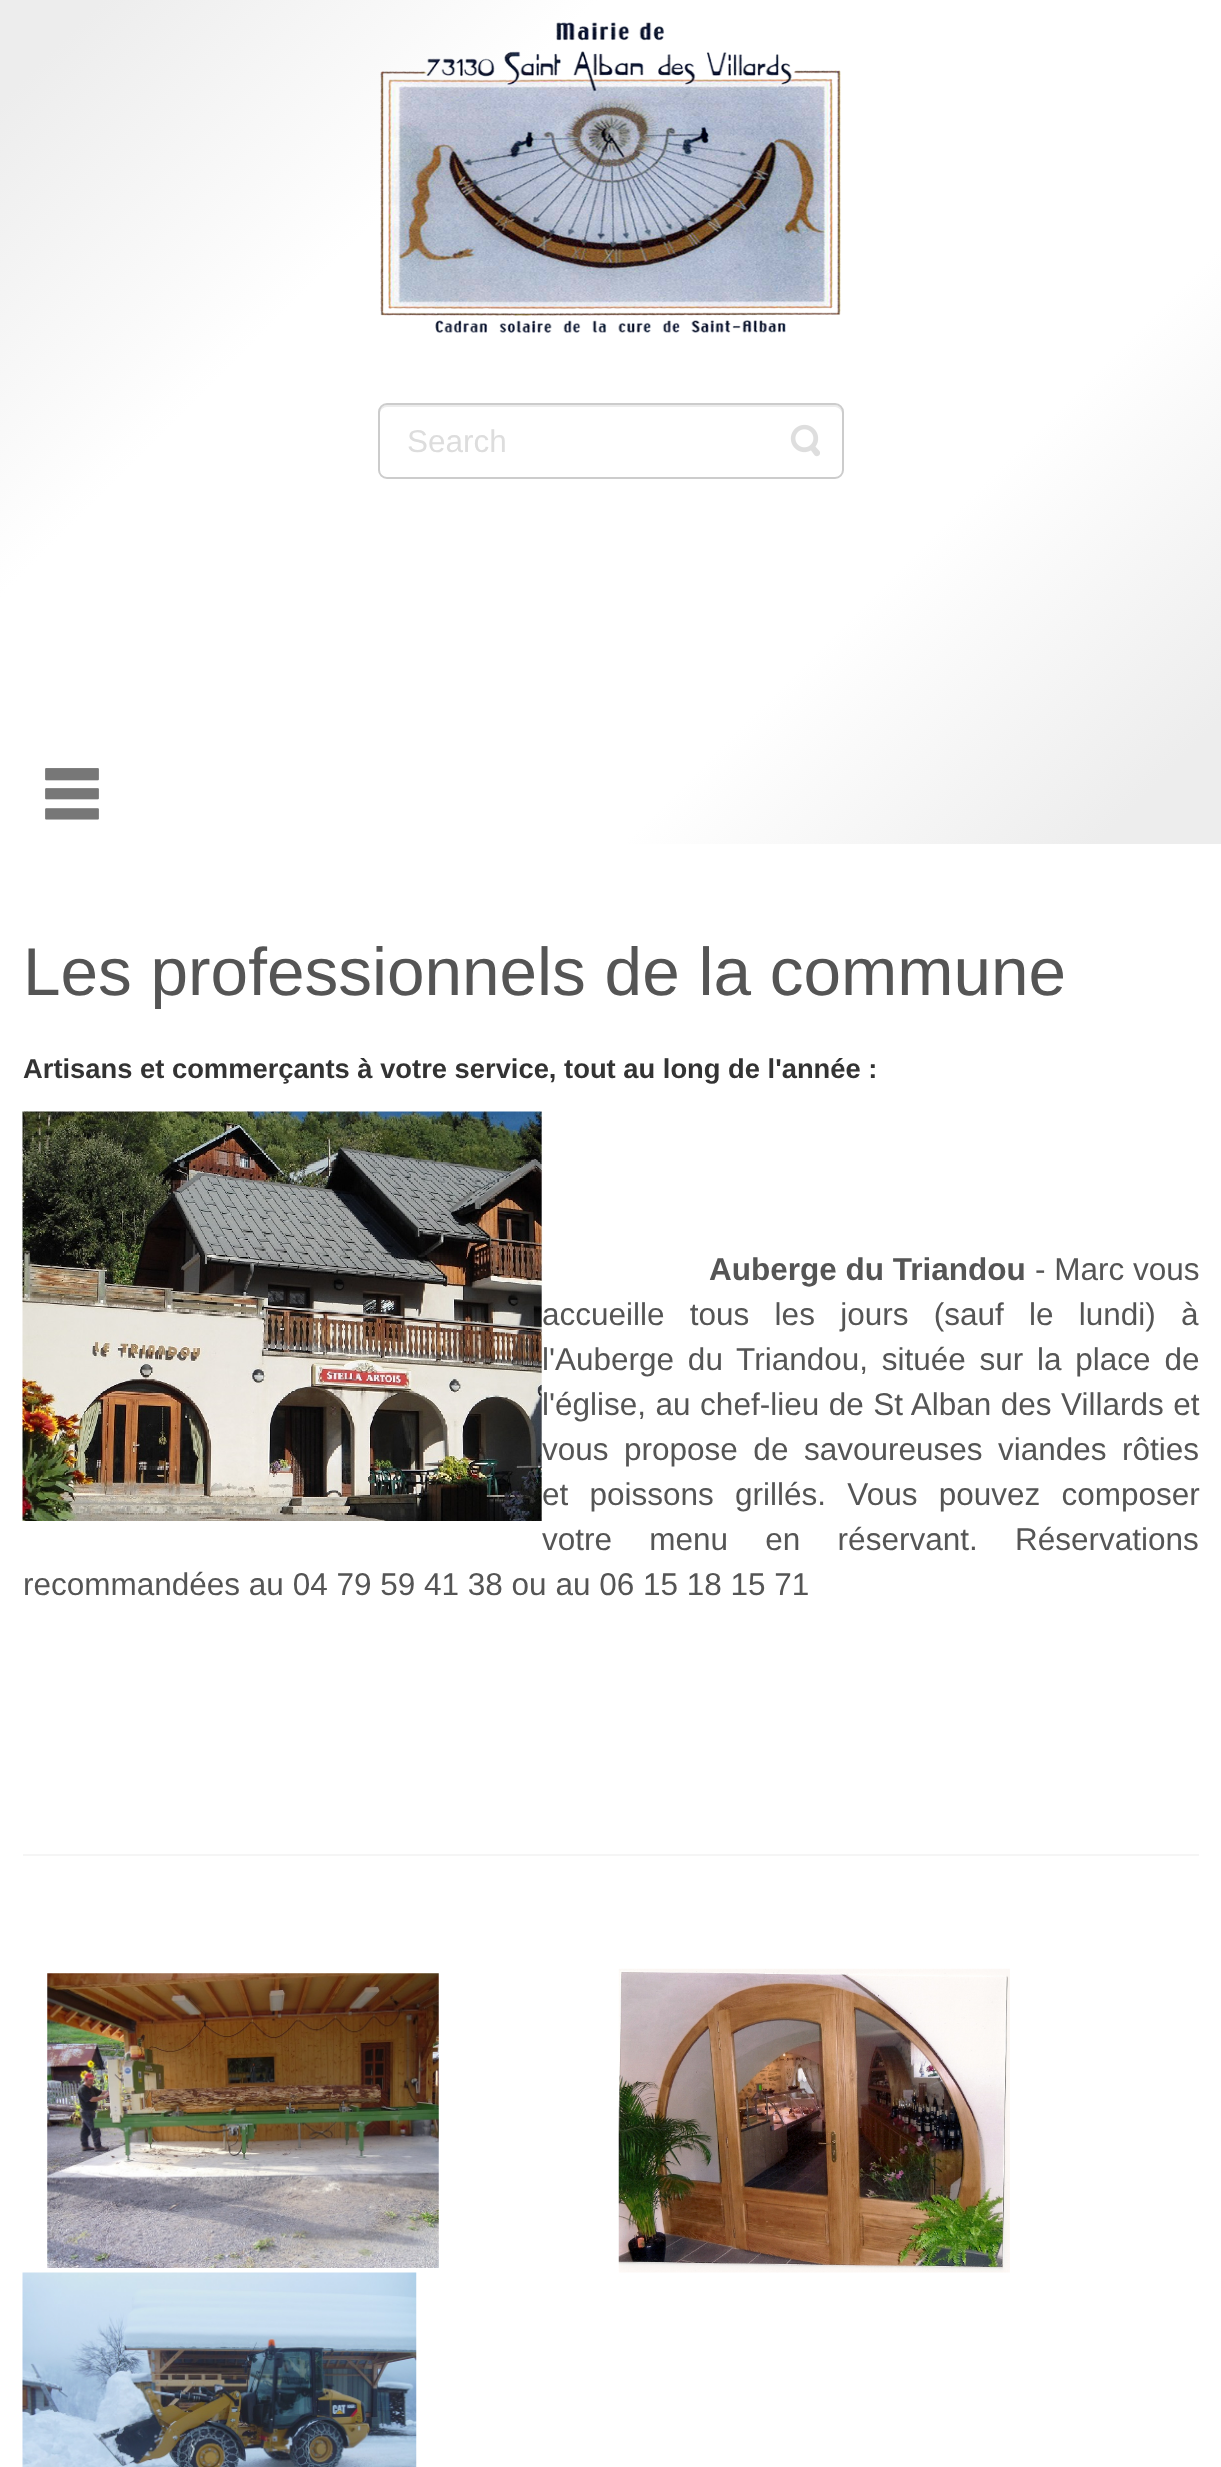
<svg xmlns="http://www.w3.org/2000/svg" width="1221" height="2467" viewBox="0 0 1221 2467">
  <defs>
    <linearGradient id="g1" gradientUnits="userSpaceOnUse" x1="95" y1="-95" x2="1127" y2="938"><stop offset="0.05" stop-color="rgb(237,237,237)"/><stop offset="0.29" stop-color="rgb(255,255,255)"/><stop offset="0.71" stop-color="rgb(255,255,255)"/><stop offset="0.94" stop-color="rgb(237,237,237)"/></linearGradient>
  </defs>
  <rect width="100%" height="100%" fill="rgb(255,255,255)"/>
  <rect x="0" y="0" width="1221" height="844" fill="url(#g1)"/>
  <image x="380" y="22" width="461" height="311" href="pic1.png"/>
  <path d="M387 407H835C838 407 842 410 842 414V412C842 408 839 405 835 405H387C383 405 380 408 380 412V414C380 410 383 407 387 407Z" fill="rgb(236,236,236)"/>
  <rect x="379" y="404" width="464" height="74" rx="8" fill="none" stroke="rgb(204,204,204)" stroke-width="2"/>
  <text x="407" y="452" font-family="Liberation Sans" font-size="31.5" fill="rgb(221,221,221)">Search</text>
  <image x="790" y="424" width="30" height="33" href="pic2.png"/>
  <image x="45" y="768" width="54" height="52" href="pic3.png"/>
  <text x="23" y="995" font-family="Liberation Sans" font-size="67.5" fill="rgb(85,85,85)">Les professionnels de la commune</text>
  <text x="23" y="1078" font-family="Liberation Sans" font-size="27.35" font-weight="bold" fill="rgb(51,51,51)">Artisans et commerçants à votre service, tout au long de l'année :</text>
  <image x="22" y="1111" width="521" height="410" href="pic4.png"/>
  <text x="709" y="1280" font-family="Liberation Sans" font-size="31.5" font-weight="bold" fill="rgb(85,85,85)">Auberge du Triandou</text>
  <g font-family="Liberation Sans" font-size="31.5" fill="rgb(85,85,85)">
    <text x="1035" y="1280">- Marc vous</text>
    <text>
      <tspan x="542" y="1325" word-spacing="16.5">accueille tous les jours (sauf le lundi) à</tspan>
      <tspan x="542" y="1370" word-spacing="5">l'Auberge du Triandou, située sur la place de</tspan>
      <tspan x="542" y="1415" word-spacing="0.75">l'église, au chef-lieu de St Alban des Villards et</tspan>
      <tspan x="542" y="1460" word-spacing="6.75">vous propose de savoureuses viandes rôties</tspan>
      <tspan x="542" y="1505" word-spacing="12.5">et poissons grillés. Vous pouvez composer</tspan>
      <tspan x="542" y="1550" word-spacing="28.5">votre menu en réservant. Réservations</tspan>
    </text>
    <text x="23" y="1595">recommandées au 04 79 59 41 38 ou au 06 15 18 15 71</text>
  </g>
  <rect x="23" y="1854" width="1176" height="2" fill="rgb(245,245,245)"/>
  <image x="47" y="1973" width="392" height="295" href="pic5.png"/>
  <image x="618" y="1968" width="392" height="305" href="pic6.png"/>
  <image x="22" y="2272" width="395" height="195" href="pic7.png"/>
</svg>
